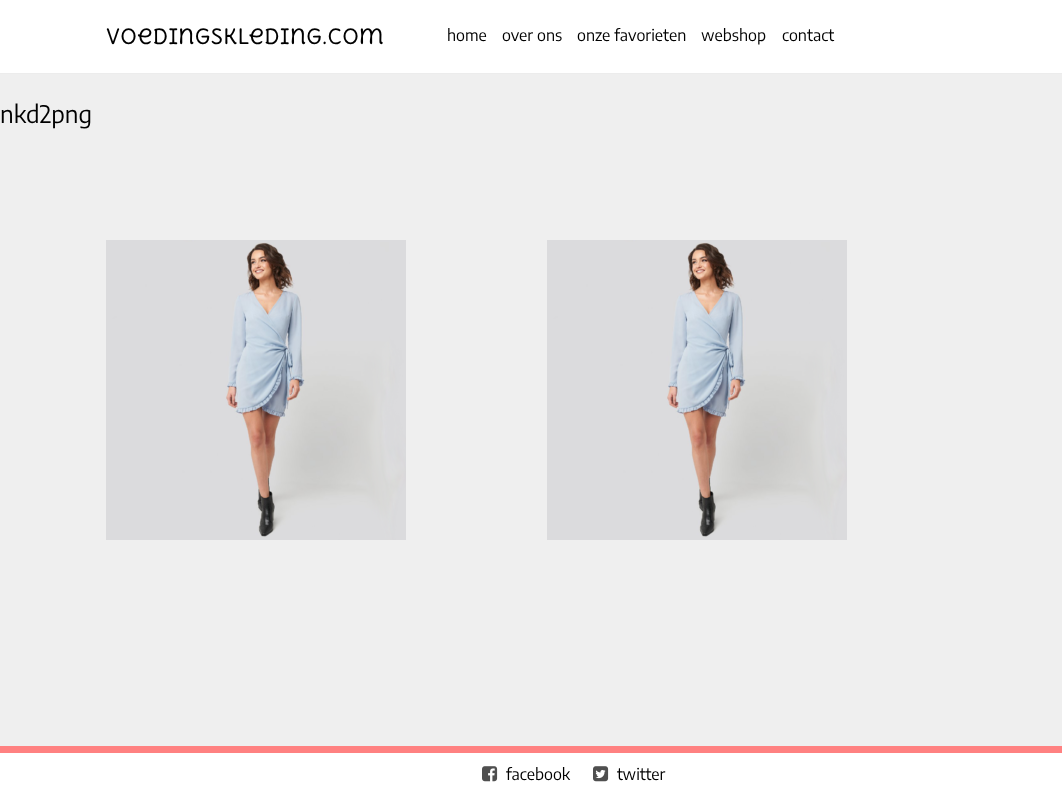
<svg xmlns="http://www.w3.org/2000/svg" width="1062" height="795" viewBox="0 0 1062 795">
  <rect width="100%" height="100%" fill="rgb(239,239,239)"/>
  <rect x="0" y="0" width="1062" height="73" fill="rgb(255,255,255)"/>
  <rect x="0" y="73" width="1062" height="1" fill="rgb(236,236,236)"/>
  <text x="106" y="44" font-family="Delius Unicase" font-size="20.75" fill="rgb(0,0,0)">voedingskleding.com</text>
  <g font-family="Encode Sans Condensed" font-size="16" fill="rgb(0,0,0)">
    <text x="447" y="41">home</text>
    <text x="502" y="41">over ons</text>
    <text x="577" y="41">onze favorieten</text>
    <text x="701" y="41">webshop</text>
    <text x="782" y="41">contact</text>
  </g>
  <text x="0" y="123" font-family="Encode Sans Condensed" font-size="24" fill="rgb(0,0,0)">nkd2png</text>
  <image x="106" y="240" width="300" height="300" href="pic1.png"/>
  <image x="547" y="240" width="300" height="300" href="pic1.png"/>
  <rect x="0" y="753" width="1062" height="42" fill="rgb(255,255,255)"/>
  <rect x="0" y="746" width="1062" height="7" fill="rgb(255,129,129)"/>
  <image x="482" y="766" width="16" height="16" href="pic2.png"/>
  <text x="506" y="780" font-family="Encode Sans Condensed" font-size="16" fill="rgb(0,0,0)">facebook</text>
  <image x="593" y="766" width="16" height="16" href="pic3.png"/>
  <text x="617" y="780" font-family="Encode Sans Condensed" font-size="16" fill="rgb(0,0,0)">twitter</text>
</svg>
